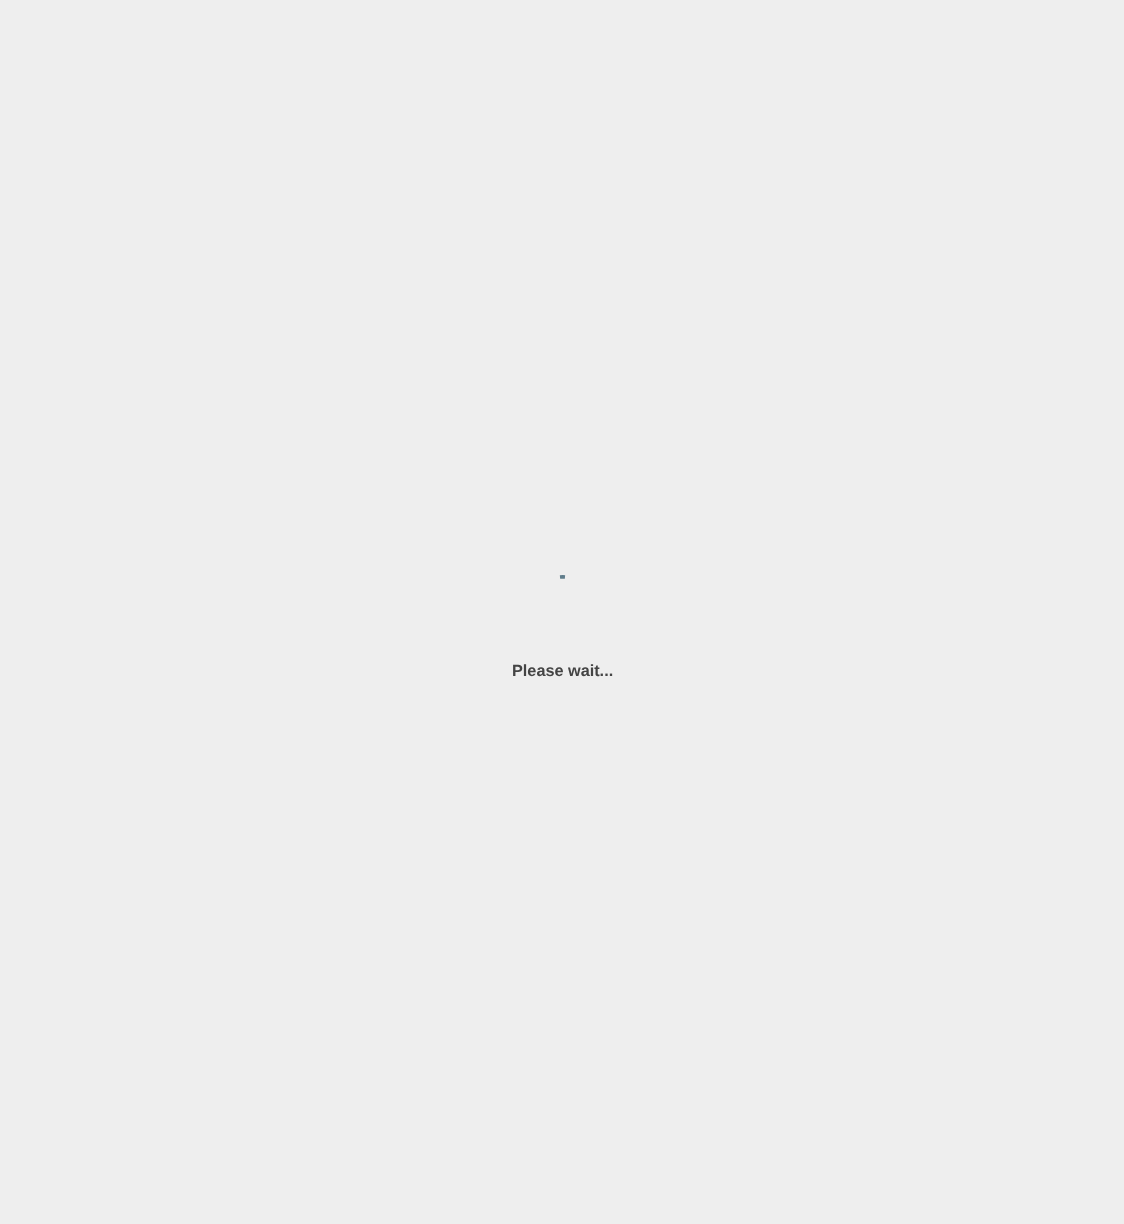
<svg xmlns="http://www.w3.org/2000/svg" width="1124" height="1224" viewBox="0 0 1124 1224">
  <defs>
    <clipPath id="clip1"><rect x="531" y="575" width="32" height="63"/></clipPath>
    <clipPath id="clip2"><rect x="563" y="575" width="31" height="63"/></clipPath>
  </defs>
  <rect width="100%" height="100%" fill="rgb(238,238,238)"/>
  <g clip-path="url(#clip1)">
    <path d="M560 577C588.5 574.5 603.5 611 581 629C576.5 633 571 635 565 635.5" fill="none" stroke="rgb(96,125,139)" stroke-width="3.7"/>
  </g>
  <g clip-path="url(#clip2)">
    <path d="M560 635.5C531.5 633 523 594.5 548.5 580.5C553.5 577.5 559.5 576.5 565 577" fill="none" stroke="rgb(96,125,139)" stroke-width="3.7"/>
  </g>
  <text x="512" y="676" font-family="Liberation Sans" font-size="16.25" font-weight="bold" fill="rgb(68,68,68)">Please wait...</text>
</svg>
